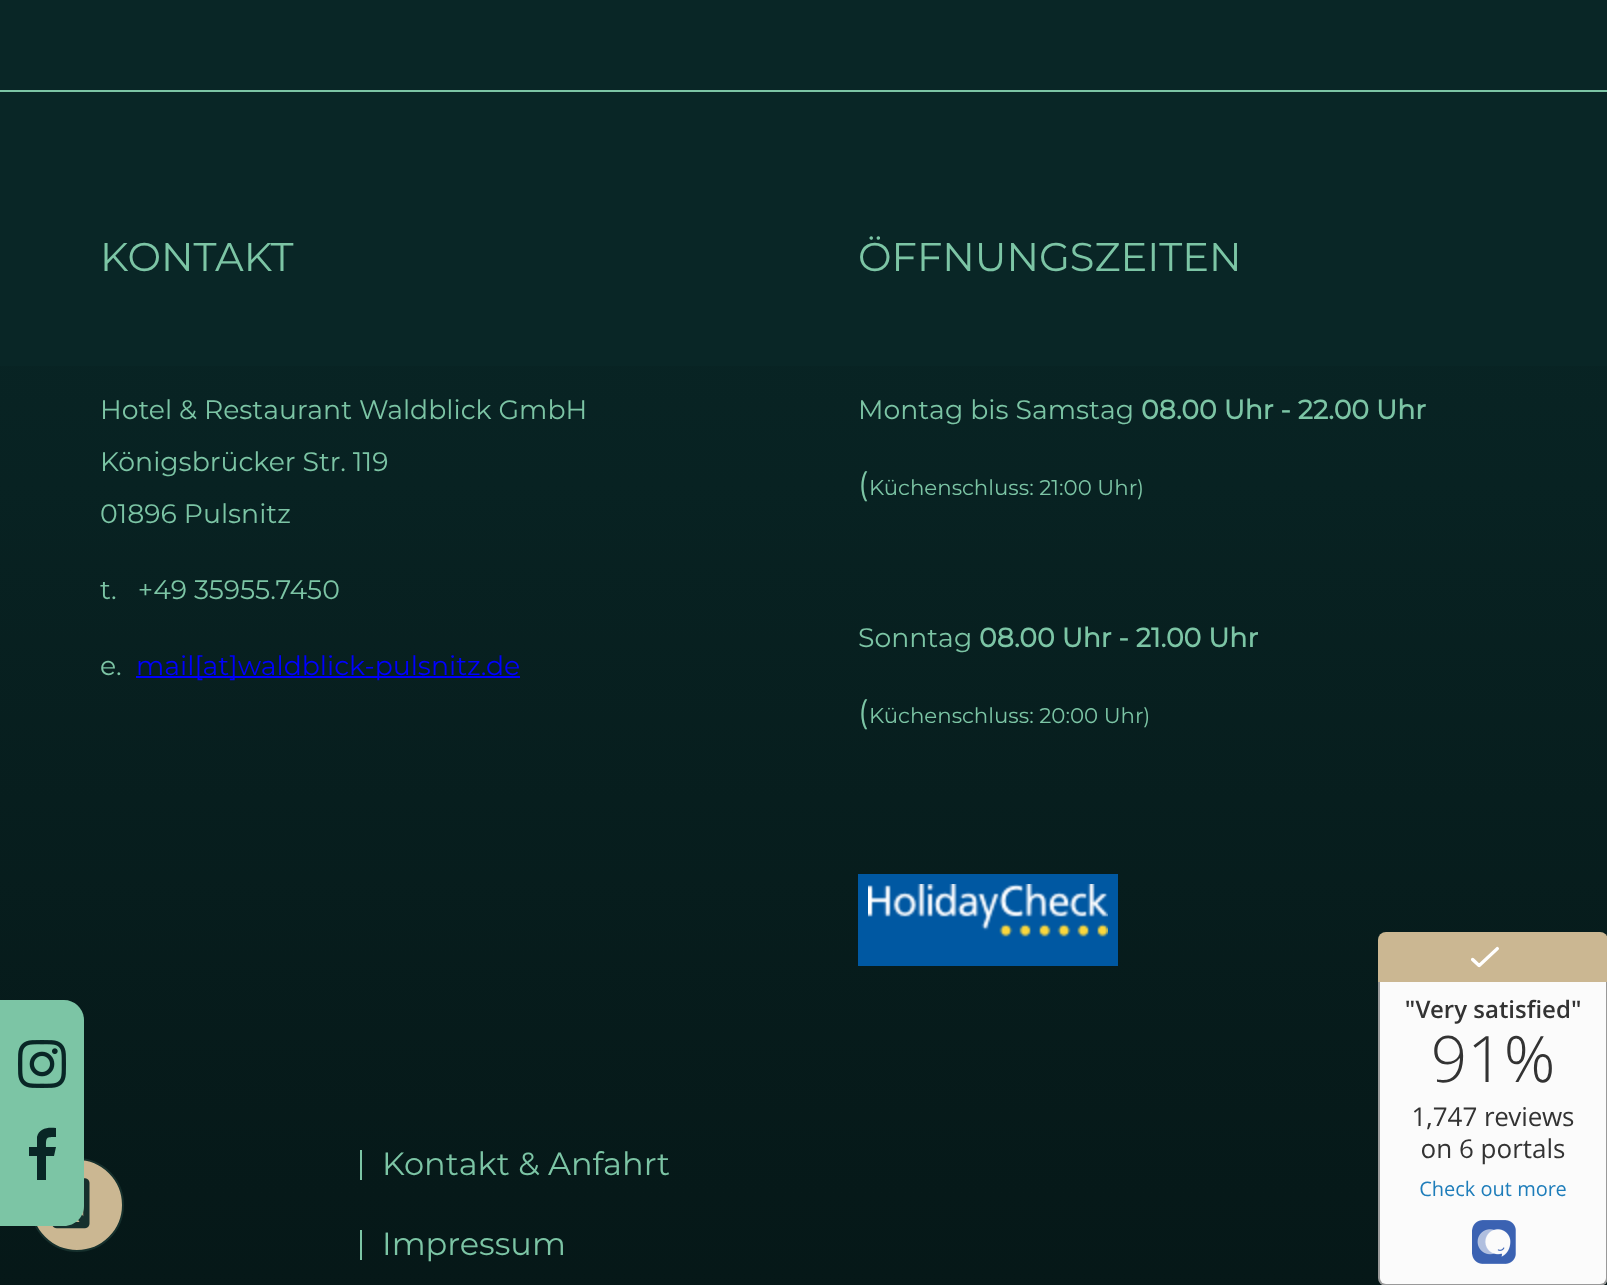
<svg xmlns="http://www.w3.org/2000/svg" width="1607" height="1285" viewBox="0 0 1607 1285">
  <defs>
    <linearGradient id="g1" gradientUnits="userSpaceOnUse" x1="804" y1="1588" x2="804" y2="90"><stop offset="0" stop-color="rgb(5,20,20)"/><stop offset="1" stop-color="rgb(9,39,39)"/></linearGradient>
  </defs>
  <rect width="100%" height="100%" fill="rgb(9,38,38)"/>
  <rect x="0" y="366" width="1607" height="919" fill="url(#g1)"/>
  <circle cx="77" cy="1205" r="46" fill="rgb(203,183,146)" stroke="rgb(22,48,45)" stroke-width="2"/>
  <image x="52" y="1178" width="38" height="51" href="pic2.png"/>
  <path d="M0 1000H64C75 1000 84 1009 84 1020V1206C84 1217 75 1226 64 1226H0Z" fill="rgb(124,197,165)"/>
  <image x="18" y="1040" width="48" height="48" href="pic1.png"/>
  <path d="M56 1128V1137C46 1137 46 1137 46 1147H56L54 1156H46V1180H37V1156H29V1147H37V1137C39 1128 48 1127 56 1128Z" fill="rgb(9,38,38)"/>
  <rect x="0" y="90" width="1607" height="2" fill="rgb(124,197,165)"/>
  <text x="100" y="271" font-family="Montserrat" font-size="40" fill="rgb(124,197,165)">KONTAKT</text>
  <g font-family="Montserrat" font-size="26.7" fill="rgb(124,197,165)">
    <text>
      <tspan x="100" y="419">Hotel &amp; Restaurant Waldblick GmbH</tspan>
      <tspan x="100" y="471">Königsbrücker Str. 119</tspan>
      <tspan x="100" y="523">01896 Pulsnitz</tspan>
    </text>
    <text x="100" y="599" xml:space="preserve">t.   +49 35955.7450</text>
    <text x="100" y="675">e.</text>
  </g>
  <rect x="136" y="676" width="384" height="2" fill="rgb(0,0,255)"/>
  <text x="136" y="675" font-family="Montserrat" font-size="26.7" fill="rgb(0,0,255)">mail[at]waldblick-pulsnitz.de</text>
  <text x="858" y="271" font-family="Montserrat" font-size="40" fill="rgb(124,197,165)">ÖFFNUNGSZEITEN</text>
  <text x="858" y="419" font-family="Montserrat" font-size="26.7" fill="rgb(124,197,165)">Montag bis Samstag</text>
  <text x="1141" y="419" font-family="Montserrat" font-size="26.7" font-weight="bold" fill="rgb(124,197,165)">08.00 Uhr - 22.00 Uhr</text>
  <text x="858" y="495" font-family="Montserrat" font-size="32" fill="rgb(124,197,165)">(</text>
  <text x="869" y="495" font-family="Montserrat" font-size="21.3" fill="rgb(124,197,165)">Küchenschluss: 21:00 Uhr)</text>
  <text x="858" y="647" font-family="Montserrat" font-size="26.7" fill="rgb(124,197,165)">Sonntag</text>
  <text x="979" y="647" font-family="Montserrat" font-size="26.7" font-weight="bold" fill="rgb(124,197,165)">08.00 Uhr - 21.00 Uhr</text>
  <text x="858" y="723" font-family="Montserrat" font-size="32" fill="rgb(124,197,165)">(</text>
  <text x="869" y="723" font-family="Montserrat" font-size="21.3" fill="rgb(124,197,165)">Küchenschluss: 20:00 Uhr)</text>
  <rect x="858" y="874" width="260" height="92" fill="rgb(0,88,162)"/>
  <image x="868" y="884" width="240" height="53" href="pic3.png"/>
  <rect x="360" y="1150" width="2" height="30" fill="rgb(124,197,165)"/>
  <text x="382" y="1175" font-family="Montserrat" font-size="32" fill="rgb(124,197,165)">Kontakt &amp; Anfahrt</text>
  <rect x="360" y="1230" width="2" height="30" fill="rgb(124,197,165)"/>
  <text x="382" y="1255" font-family="Montserrat" font-size="32" fill="rgb(124,197,165)">Impressum</text>
  <image x="1378" y="932" width="229" height="353" href="pic4.png"/>
</svg>
